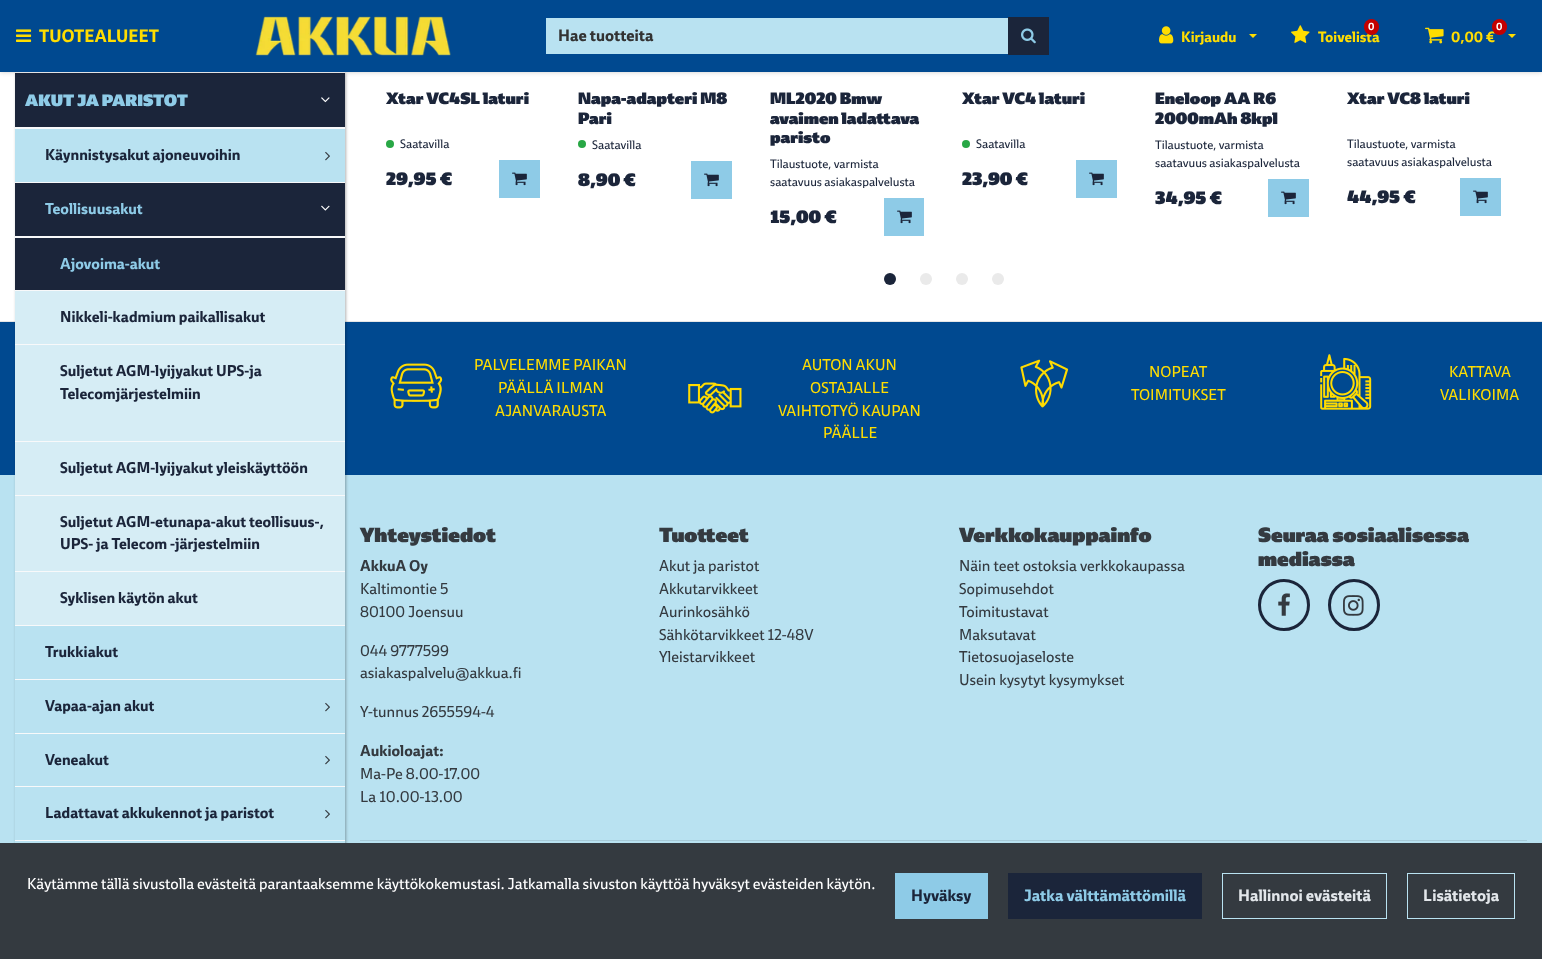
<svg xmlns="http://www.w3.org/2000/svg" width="1542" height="959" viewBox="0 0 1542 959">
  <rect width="100%" height="100%" fill="rgb(255,255,255)"/>
  <rect x="0" y="322" width="1542" height="153" fill="rgb(0,73,144)"/>
  <rect x="0" y="321" width="1542" height="1" fill="rgb(230,230,230)"/>
  <rect x="0" y="475" width="1542" height="368" fill="rgb(185,226,241)"/>
  <rect x="16" y="73" width="330" height="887" fill="rgba(0,0,0,0.3)" filter="blur(1.5px)"/>
  <rect x="15" y="73" width="330" height="54" fill="rgb(27,37,58)"/>
  <rect x="15" y="72" width="330" height="1" fill="rgb(248,249,250)"/>
  <rect x="0" y="0" width="1542" height="72" fill="rgba(0,0,0,0.2)" filter="blur(2.5px)"/>
  <rect x="0" y="0" width="1542" height="72" fill="rgb(0,73,144)"/>
  <image x="16" y="29" width="16" height="13" href="pic1.png"/>
  <text x="39" y="42" font-family="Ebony" font-size="17.5" font-weight="bold" fill="rgb(255,221,0)">TUOTEALUEET</text>
  <image x="255" y="16" width="196" height="40" href="pic2.png"/>
  <rect x="546" y="18" width="462" height="36" fill="rgb(185,226,241)"/>
  <text x="558" y="41" font-family="Ebony" font-size="16" font-weight="bold" fill="rgb(51,51,51)">Hae tuotteita</text>
  <rect x="1008" y="17" width="41" height="38" fill="rgb(27,37,58)"/>
  <image x="1021" y="28" width="15" height="16" href="pic3.png"/>
  <image x="1159" y="26" width="15" height="18" href="pic4.png"/>
  <text x="1181" y="42" font-family="Ebony" font-size="14.5" font-weight="bold" fill="rgb(255,221,0)">Kirjaudu</text>
  <path d="M1249 34H1257L1253 38Z" fill="rgb(255,221,0)"/>
  <image x="1291" y="25" width="19" height="18" href="pic5.png"/>
  <text x="1318" y="42" font-family="Ebony" font-size="14.5" font-weight="bold" fill="rgb(255,221,0)">Toivelista</text>
  <rect x="1364" y="19" width="15" height="16" rx="7.5" fill="rgb(196,0,0)"/>
  <text x="1368" y="30" font-family="Ebony" font-size="10" font-weight="bold" fill="rgb(255,255,255)">0</text>
  <image x="1425" y="27" width="19" height="17" href="pic6.png"/>
  <text x="1451" y="42" font-family="Ebony" font-size="14.5" font-weight="bold" fill="rgb(255,221,0)">0,00 €</text>
  <rect x="1492" y="19" width="15" height="16" rx="7.5" fill="rgb(196,0,0)"/>
  <text x="1496" y="30" font-family="Ebony" font-size="10" font-weight="bold" fill="rgb(255,255,255)">0</text>
  <path d="M1508 34H1516L1512 38Z" fill="rgb(255,221,0)"/>
  <rect x="15" y="127" width="330" height="2" fill="rgb(248,249,250)"/>
  <text x="25" y="106" font-family="Ebony" font-size="16" font-weight="900" fill="rgb(142,203,231)">AKUT JA PARISTOT</text>
  <image x="321" y="97" width="9" height="6" href="pic7.png"/>
  <rect x="15" y="129" width="330" height="53" fill="rgb(185,226,241)"/>
  <rect x="15" y="182" width="330" height="1" fill="rgb(248,249,250)"/>
  <text x="45" y="160" font-family="Ebony" font-size="15.2" font-weight="bold" fill="rgb(27,37,58)">Käynnistysakut ajoneuvoihin</text>
  <image x="325" y="151" width="5" height="10" href="pic8.png"/>
  <rect x="15" y="183" width="330" height="53" fill="rgb(27,37,58)"/>
  <rect x="15" y="236" width="330" height="2" fill="rgb(248,249,250)"/>
  <text x="45" y="214" font-family="Ebony" font-size="15.2" font-weight="bold" fill="rgb(142,203,231)">Teollisuusakut</text>
  <image x="321" y="205" width="9" height="6" href="pic9.png"/>
  <rect x="15" y="238" width="330" height="52" fill="rgb(27,37,58)"/>
  <rect x="15" y="290" width="330" height="1" fill="rgb(248,249,250)"/>
  <text x="60" y="269" font-family="Ebony" font-size="15.2" font-weight="bold" fill="rgb(142,203,231)">Ajovoima-akut</text>
  <rect x="15" y="291" width="330" height="53" fill="rgb(214,237,245)"/>
  <rect x="15" y="344" width="330" height="1" fill="rgb(248,249,250)"/>
  <text x="60" y="322" font-family="Ebony" font-size="15.2" font-weight="bold" fill="rgb(27,37,58)">Nikkeli-kadmium paikallisakut</text>
  <rect x="15" y="345" width="330" height="96" fill="rgb(214,237,245)"/>
  <rect x="15" y="441" width="330" height="1" fill="rgb(248,249,250)"/>
  <g font-family="Ebony" font-size="15.2" font-weight="bold" fill="rgb(27,37,58)">
    <text>
      <tspan x="60" y="376">Suljetut AGM-lyijyakut UPS-ja</tspan>
      <tspan x="60" y="399">Telecomjärjestelmiin</tspan>
    </text>
  </g>
  <rect x="15" y="442" width="330" height="53" fill="rgb(214,237,245)"/>
  <rect x="15" y="495" width="330" height="1" fill="rgb(248,249,250)"/>
  <text x="60" y="473" font-family="Ebony" font-size="15.2" font-weight="bold" fill="rgb(27,37,58)">Suljetut AGM-lyijyakut yleiskäyttöön</text>
  <rect x="15" y="496" width="330" height="75" fill="rgb(214,237,245)"/>
  <rect x="15" y="571" width="330" height="1" fill="rgb(248,249,250)"/>
  <g font-family="Ebony" font-size="15.2" font-weight="bold" fill="rgb(27,37,58)">
    <text>
      <tspan x="60" y="527">Suljetut AGM-etunapa-akut teollisuus-,</tspan>
      <tspan x="60" y="549">UPS- ja Telecom -järjestelmiin</tspan>
    </text>
  </g>
  <rect x="15" y="572" width="330" height="53" fill="rgb(214,237,245)"/>
  <rect x="15" y="625" width="330" height="1" fill="rgb(248,249,250)"/>
  <text x="60" y="603" font-family="Ebony" font-size="15.2" font-weight="bold" fill="rgb(27,37,58)">Syklisen käytön akut</text>
  <rect x="15" y="626" width="330" height="53" fill="rgb(185,226,241)"/>
  <rect x="15" y="679" width="330" height="1" fill="rgb(248,249,250)"/>
  <text x="45" y="657" font-family="Ebony" font-size="15.2" font-weight="bold" fill="rgb(27,37,58)">Trukkiakut</text>
  <rect x="15" y="680" width="330" height="53" fill="rgb(185,226,241)"/>
  <rect x="15" y="733" width="330" height="1" fill="rgb(248,249,250)"/>
  <text x="45" y="711" font-family="Ebony" font-size="15.2" font-weight="bold" fill="rgb(27,37,58)">Vapaa-ajan akut</text>
  <image x="325" y="702" width="5" height="10" href="pic8.png"/>
  <rect x="15" y="734" width="330" height="52" fill="rgb(185,226,241)"/>
  <rect x="15" y="786" width="330" height="1" fill="rgb(248,249,250)"/>
  <text x="45" y="765" font-family="Ebony" font-size="15.2" font-weight="bold" fill="rgb(27,37,58)">Veneakut</text>
  <image x="325" y="755" width="5" height="10" href="pic8.png"/>
  <rect x="15" y="787" width="330" height="53" fill="rgb(185,226,241)"/>
  <rect x="15" y="840" width="330" height="1" fill="rgb(248,249,250)"/>
  <text x="45" y="818" font-family="Ebony" font-size="15.2" font-weight="bold" fill="rgb(27,37,58)">Ladattavat akkukennot ja paristot</text>
  <image x="325" y="809" width="5" height="10" href="pic8.png"/>
  <rect x="15" y="841" width="330" height="2" fill="rgb(185,226,241)"/>
  <text x="386" y="104" font-family="Ebony" font-size="16" font-weight="900" fill="rgb(27,37,58)">Xtar VC4SL laturi</text>
  <circle cx="390" cy="144" r="4" fill="rgb(40,167,69)"/>
  <text x="400" y="148" font-family="Ebony" font-size="12" fill="rgb(27,37,58)">Saatavilla</text>
  <text x="386" y="185" font-family="Ebony" font-size="17.5" font-weight="900" fill="rgb(27,37,58)">29,95 €</text>
  <rect x="499" y="160" width="41" height="38" fill="rgb(142,203,231)"/>
  <image x="512" y="172" width="15" height="14" href="pic10.png"/>
  <g font-family="Ebony" font-size="16" font-weight="900" fill="rgb(27,37,58)">
    <text>
      <tspan x="578" y="104">Napa-adapteri M8</tspan>
      <tspan x="578" y="124">Pari</tspan>
    </text>
  </g>
  <circle cx="582" cy="144" r="4" fill="rgb(40,167,69)"/>
  <text x="592" y="149" font-family="Ebony" font-size="12" fill="rgb(27,37,58)">Saatavilla</text>
  <text x="578" y="186" font-family="Ebony" font-size="17.5" font-weight="900" fill="rgb(27,37,58)">8,90 €</text>
  <rect x="691" y="161" width="41" height="38" fill="rgb(142,203,231)"/>
  <image x="704" y="173" width="15" height="14" href="pic10.png"/>
  <g font-family="Ebony" font-size="16" font-weight="900" fill="rgb(27,37,58)">
    <text>
      <tspan x="770" y="104">ML2020 Bmw</tspan>
      <tspan x="770" y="124">avaimen ladattava</tspan>
      <tspan x="770" y="143">paristo</tspan>
    </text>
  </g>
  <g font-family="Ebony" font-size="12" fill="rgb(27,37,58)">
    <text>
      <tspan x="770" y="168">Tilaustuote, varmista</tspan>
      <tspan x="770" y="186">saatavuus asiakaspalvelusta</tspan>
    </text>
  </g>
  <text x="770" y="223" font-family="Ebony" font-size="17.5" font-weight="900" fill="rgb(27,37,58)">15,00 €</text>
  <rect x="884" y="198" width="40" height="38" fill="rgb(142,203,231)"/>
  <image x="897" y="210" width="15" height="14" href="pic10.png"/>
  <text x="962" y="104" font-family="Ebony" font-size="16" font-weight="900" fill="rgb(27,37,58)">Xtar VC4 laturi</text>
  <circle cx="966" cy="144" r="4" fill="rgb(40,167,69)"/>
  <text x="976" y="148" font-family="Ebony" font-size="12" fill="rgb(27,37,58)">Saatavilla</text>
  <text x="962" y="185" font-family="Ebony" font-size="17.5" font-weight="900" fill="rgb(27,37,58)">23,90 €</text>
  <rect x="1076" y="160" width="41" height="38" fill="rgb(142,203,231)"/>
  <image x="1089" y="172" width="15" height="14" href="pic10.png"/>
  <g font-family="Ebony" font-size="16" font-weight="900" fill="rgb(27,37,58)">
    <text>
      <tspan x="1155" y="104">Eneloop AA R6</tspan>
      <tspan x="1155" y="124">2000mAh 8kpl</tspan>
    </text>
  </g>
  <g font-family="Ebony" font-size="12" fill="rgb(27,37,58)">
    <text>
      <tspan x="1155" y="149">Tilaustuote, varmista</tspan>
      <tspan x="1155" y="167">saatavuus asiakaspalvelusta</tspan>
    </text>
  </g>
  <text x="1155" y="204" font-family="Ebony" font-size="17.5" font-weight="900" fill="rgb(27,37,58)">34,95 €</text>
  <rect x="1268" y="179" width="41" height="38" fill="rgb(142,203,231)"/>
  <image x="1281" y="191" width="15" height="14" href="pic10.png"/>
  <text x="1347" y="104" font-family="Ebony" font-size="16" font-weight="900" fill="rgb(27,37,58)">Xtar VC8 laturi</text>
  <g font-family="Ebony" font-size="12" fill="rgb(27,37,58)">
    <text>
      <tspan x="1347" y="148">Tilaustuote, varmista</tspan>
      <tspan x="1347" y="166">saatavuus asiakaspalvelusta</tspan>
    </text>
  </g>
  <text x="1347" y="203" font-family="Ebony" font-size="17.5" font-weight="900" fill="rgb(27,37,58)">44,95 €</text>
  <rect x="1460" y="178" width="41" height="38" fill="rgb(142,203,231)"/>
  <image x="1473" y="190" width="15" height="14" href="pic10.png"/>
  <circle cx="890" cy="279" r="6" fill="rgb(27,37,58)"/>
  <circle cx="926" cy="279" r="6" fill="rgb(234,234,234)"/>
  <circle cx="962" cy="279" r="6" fill="rgb(234,234,234)"/>
  <circle cx="998" cy="279" r="6" fill="rgb(234,234,234)"/>
  <image x="390" y="363" width="53" height="46" href="pic11.png"/>
  <g font-family="Ebony" font-size="15.2" fill="rgb(255,221,0)">
    <text x="474" y="370">PALVELEMME PAIKAN</text>
    <text x="498" y="393">PÄÄLLÄ ILMAN</text>
    <text x="495" y="416">AJANVARAUSTA</text>
  </g>
  <image x="688" y="382" width="54" height="32" href="pic12.png"/>
  <g font-family="Ebony" font-size="15.2" fill="rgb(255,221,0)">
    <text x="802" y="370">AUTON AKUN</text>
    <text x="810" y="393">OSTAJALLE</text>
    <text x="778" y="416">VAIHTOTYÖ KAUPAN</text>
    <text x="823" y="438">PÄÄLLE</text>
  </g>
  <image x="1020" y="359" width="49" height="49" href="pic13.png"/>
  <g font-family="Ebony" font-size="15.2" fill="rgb(255,221,0)">
    <text x="1149" y="377">NOPEAT</text>
    <text x="1131" y="400">TOIMITUKSET</text>
  </g>
  <image x="1320" y="354" width="52" height="56" href="pic14.png"/>
  <g font-family="Ebony" font-size="15.2" fill="rgb(255,221,0)">
    <text x="1449" y="377">KATTAVA</text>
    <text x="1440" y="400">VALIKOIMA</text>
  </g>
  <text x="360" y="542" font-family="Ebony" font-size="20" font-weight="900" fill="rgb(52,58,64)">Yhteystiedot</text>
  <text x="360" y="571" font-family="Ebony" font-size="15.2" font-weight="bold" fill="rgb(52,58,64)">AkkuA Oy</text>
  <g font-family="Ebony" font-size="15.2" fill="rgb(52,58,64)">
    <text>
      <tspan x="360" y="594">Kaltimontie 5</tspan>
      <tspan x="360" y="617">80100 Joensuu</tspan>
    </text>
    <text>
      <tspan x="360" y="656">044 9777599</tspan>
      <tspan x="360" y="678">asiakaspalvelu@akkua.fi</tspan>
    </text>
    <text x="360" y="717">Y-tunnus 2655594-4</text>
  </g>
  <text x="360" y="756" font-family="Ebony" font-size="15.2" font-weight="bold" fill="rgb(52,58,64)">Aukioloajat:</text>
  <g font-family="Ebony" font-size="15.2" fill="rgb(52,58,64)">
    <text>
      <tspan x="360" y="779">Ma-Pe 8.00-17.00</tspan>
      <tspan x="360" y="802">La 10.00-13.00</tspan>
    </text>
  </g>
  <text x="659" y="542" font-family="Ebony" font-size="20" font-weight="900" fill="rgb(52,58,64)">Tuotteet</text>
  <g font-family="Ebony" font-size="15.2" fill="rgb(52,58,64)">
    <text>
      <tspan x="659" y="571">Akut ja paristot</tspan>
      <tspan x="659" y="594">Akkutarvikkeet</tspan>
      <tspan x="659" y="617">Aurinkosähkö</tspan>
      <tspan x="659" y="640">Sähkötarvikkeet 12-48V</tspan>
      <tspan x="659" y="662">Yleistarvikkeet</tspan>
    </text>
  </g>
  <text x="959" y="542" font-family="Ebony" font-size="20" font-weight="900" fill="rgb(52,58,64)">Verkkokauppainfo</text>
  <g font-family="Ebony" font-size="15.2" fill="rgb(52,58,64)">
    <text>
      <tspan x="959" y="571">Näin teet ostoksia verkkokaupassa</tspan>
      <tspan x="959" y="594">Sopimusehdot</tspan>
      <tspan x="959" y="617">Toimitustavat</tspan>
      <tspan x="959" y="640">Maksutavat</tspan>
      <tspan x="959" y="662">Tietosuojaseloste</tspan>
      <tspan x="959" y="685">Usein kysytyt kysymykset</tspan>
    </text>
  </g>
  <g font-family="Ebony" font-size="20" font-weight="900" fill="rgb(52,58,64)">
    <text>
      <tspan x="1258" y="542">Seuraa sosiaalisessa</tspan>
      <tspan x="1258" y="566">mediassa</tspan>
    </text>
  </g>
  <circle cx="1284" cy="605" r="24.5" fill="none" stroke="rgb(27,37,58)" stroke-width="3"/>
  <image x="1278" y="593" width="12" height="23" href="pic15.png"/>
  <circle cx="1354" cy="605" r="24.5" fill="none" stroke="rgb(27,37,58)" stroke-width="3"/>
  <image x="1343" y="595" width="21" height="21" href="pic16.png"/>
  <rect x="360" y="840" width="1167" height="1" fill="rgb(167,203,217)"/>
  <rect x="0" y="843" width="1542" height="116" fill="rgb(52,58,64)"/>
  <text x="27" y="889" font-family="Ebony" font-size="15.2" fill="rgb(255,255,255)">Käytämme tällä sivustolla evästeitä parantaaksemme käyttökokemustasi. Jatkamalla sivuston käyttöä hyväksyt evästeiden käytön.</text>
  <rect x="895" y="873" width="93" height="46" fill="rgb(142,203,231)"/>
  <text x="911" y="901" font-family="Ebony" font-size="16" font-weight="bold" fill="rgb(27,37,58)">Hyväksy</text>
  <rect x="1008" y="873" width="194" height="46" fill="rgb(27,37,58)"/>
  <text x="1024" y="901" font-family="Ebony" font-size="16" font-weight="bold" fill="rgb(142,203,231)">Jatka välttämättömillä</text>
  <rect x="1222.5" y="873.5" width="164" height="45" fill="none" stroke="rgb(185,226,241)"/>
  <text x="1238" y="901" font-family="Ebony" font-size="16" font-weight="bold" fill="rgb(226,230,234)">Hallinnoi evästeitä</text>
  <rect x="1407.5" y="873.5" width="107" height="45" fill="none" stroke="rgb(185,226,241)"/>
  <text x="1423" y="901" font-family="Ebony" font-size="16" font-weight="bold" fill="rgb(226,230,234)">Lisätietoja</text>
</svg>
